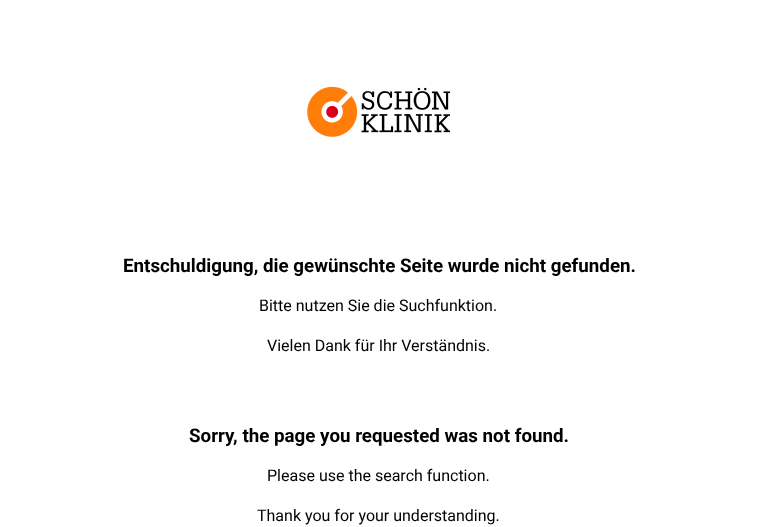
<svg xmlns="http://www.w3.org/2000/svg" width="757" height="527" viewBox="0 0 757 527">
  <rect width="100%" height="100%" fill="rgb(255,255,255)"/>
  <image x="307" y="86" width="143" height="51" href="pic1.png"/>
  <text x="123" y="272" font-family="Roboto" font-size="18.75" font-weight="bold" fill="rgb(0,0,0)">Entschuldigung, die gewünschte Seite wurde nicht gefunden.</text>
  <g font-family="Roboto" font-size="16" fill="rgb(0,0,0)">
    <text x="259" y="311">Bitte nutzen Sie die Suchfunktion.</text>
    <text x="267" y="351">Vielen Dank für Ihr Verständnis.</text>
  </g>
  <text x="189" y="442" font-family="Roboto" font-size="18.75" font-weight="bold" fill="rgb(0,0,0)">Sorry, the page you requested was not found.</text>
  <g font-family="Roboto" font-size="16" fill="rgb(0,0,0)">
    <text x="267" y="481">Please use the search function.</text>
    <text x="257" y="521">Thank you for your understanding.</text>
  </g>
</svg>
